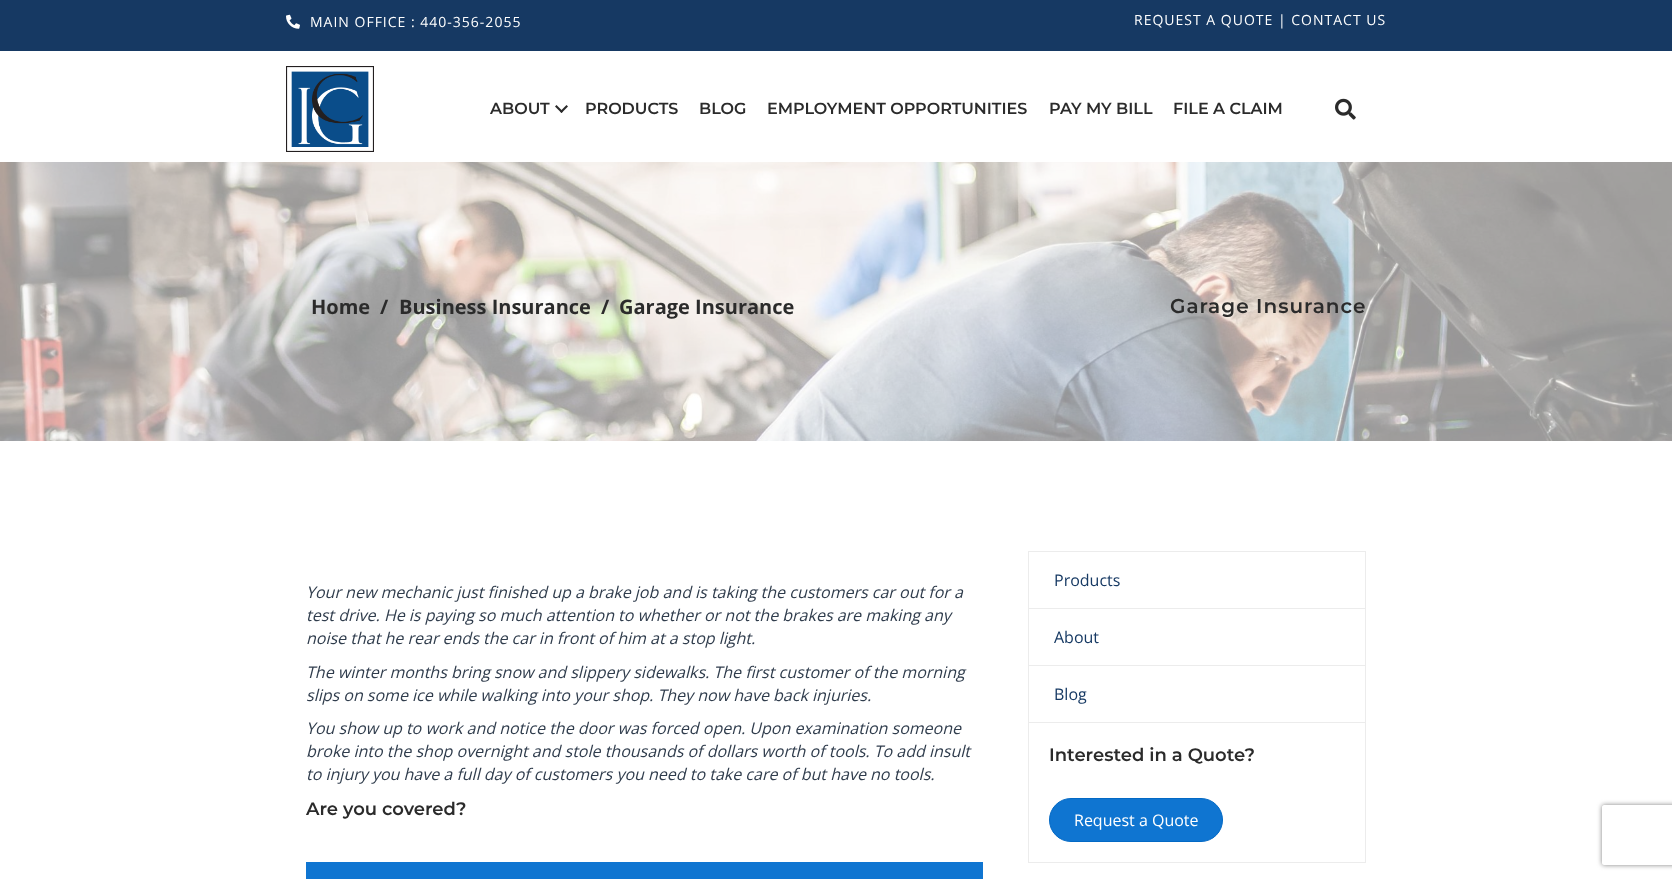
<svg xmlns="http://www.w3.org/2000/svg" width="1672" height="879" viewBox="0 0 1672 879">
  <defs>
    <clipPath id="clip1"><path d="M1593 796H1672V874H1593ZM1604 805H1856C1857 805 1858 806 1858 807V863C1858 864 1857 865 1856 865H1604C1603 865 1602 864 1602 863V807C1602 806 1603 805 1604 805Z" clip-rule="evenodd"/></clipPath>
  </defs>
  <rect width="100%" height="100%" fill="rgb(255,255,255)"/>
  <rect x="0" y="0" width="1672" height="51" fill="rgb(22,57,99)"/>
  <image x="286" y="14" width="14" height="15" href="pic1.png"/>
  <g font-family="Open Sans" font-size="14" letter-spacing="1" fill="rgb(255,255,255)">
    <text x="310" y="27">MAIN OFFICE : 440-356-2055</text>
    <text x="1134" y="25">REQUEST A QUOTE | CONTACT US</text>
  </g>
  <image x="286" y="66" width="88" height="86" href="pic2.png"/>
  <text x="490" y="114" font-family="Montserrat" font-size="16" font-weight="600" fill="rgb(43,43,43)">ABOUT</text>
  <path d="M566.5 105L568 106.5L561.5 113L560 111.5Z" fill="rgb(43,43,43)"/>
  <path d="M556.5 105L563 111.5L561.5 113L555 106.5Z" fill="rgb(43,43,43)"/>
  <g font-family="Montserrat" font-size="16" font-weight="600" fill="rgb(43,43,43)">
    <text x="585" y="114">PRODUCTS</text>
    <text x="699" y="114">BLOG</text>
    <text x="767" y="114">EMPLOYMENT OPPORTUNITIES</text>
    <text x="1049" y="114">PAY MY BILL</text>
    <text x="1173" y="114">FILE A CLAIM</text>
  </g>
  <image x="1335" y="98" width="21" height="22" href="pic3.png"/>
  <image x="0" y="162" width="1672" height="279" href="pic4.png"/>
  <g font-family="Open Sans" font-size="20" font-weight="bold" fill="rgb(43,43,43)">
    <text x="311" y="314">Home</text>
    <text x="380" y="314">/</text>
    <text x="399" y="314">Business Insurance</text>
    <text x="601" y="314">/</text>
    <text x="619" y="314">Garage Insurance</text>
  </g>
  <text x="1170" y="313" font-family="Montserrat" font-size="20" font-weight="600" letter-spacing="1" fill="rgb(43,43,43)">Garage Insurance</text>
  <g font-family="Open Sans" font-size="16" font-style="italic" fill="rgb(48,61,77)">
    <text>
      <tspan x="306" y="598">Your new mechanic just finished up a brake job and is taking the customers car out for a</tspan>
      <tspan x="306" y="621">test drive. He is paying so much attention to whether or not the brakes are making any</tspan>
      <tspan x="306" y="644">noise that he rear ends the car in front of him at a stop light.</tspan>
    </text>
    <text>
      <tspan x="306" y="678">The winter months bring snow and slippery sidewalks. The first customer of the morning</tspan>
      <tspan x="306" y="701">slips on some ice while walking into your shop. They now have back injuries.</tspan>
    </text>
    <text>
      <tspan x="306" y="734">You show up to work and notice the door was forced open. Upon examination someone</tspan>
      <tspan x="306" y="757">broke into the shop overnight and stole thousands of dollars worth of tools. To add insult</tspan>
      <tspan x="306" y="780">to injury you have a full day of customers you need to take care of but have no tools.</tspan>
    </text>
  </g>
  <text x="306" y="815" font-family="Montserrat" font-size="18" font-weight="600" fill="rgb(43,43,43)">Are you covered?</text>
  <rect x="306" y="862" width="677" height="17" fill="rgb(15,117,209)"/>
  <rect x="1028.5" y="551.5" width="337" height="311" fill="none" stroke="rgb(236,236,236)"/>
  <text x="1054" y="586" font-family="Open Sans" font-size="16" fill="rgb(22,57,99)">Products</text>
  <rect x="1029" y="608" width="336" height="1" fill="rgb(236,236,236)"/>
  <text x="1054" y="643" font-family="Open Sans" font-size="16" fill="rgb(22,57,99)">About</text>
  <rect x="1029" y="665" width="336" height="1" fill="rgb(236,236,236)"/>
  <text x="1054" y="700" font-family="Open Sans" font-size="16" fill="rgb(22,57,99)">Blog</text>
  <rect x="1029" y="722" width="336" height="1" fill="rgb(236,236,236)"/>
  <text x="1049" y="761" font-family="Montserrat" font-size="18" font-weight="600" fill="rgb(43,43,43)">Interested in a Quote?</text>
  <rect x="1049.5" y="798.5" width="173" height="43" rx="21.5" fill="rgb(15,117,209)" stroke="rgb(3,105,197)"/>
  <text x="1074" y="826" font-family="Open Sans" font-size="16" fill="rgb(255,255,255)">Request a Quote</text>
  <g clip-path="url(#clip1)">
    <rect x="1602" y="805" width="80" height="60" rx="2" fill="rgb(128,128,128)" filter="blur(2.5px)"/>
  </g>
</svg>
